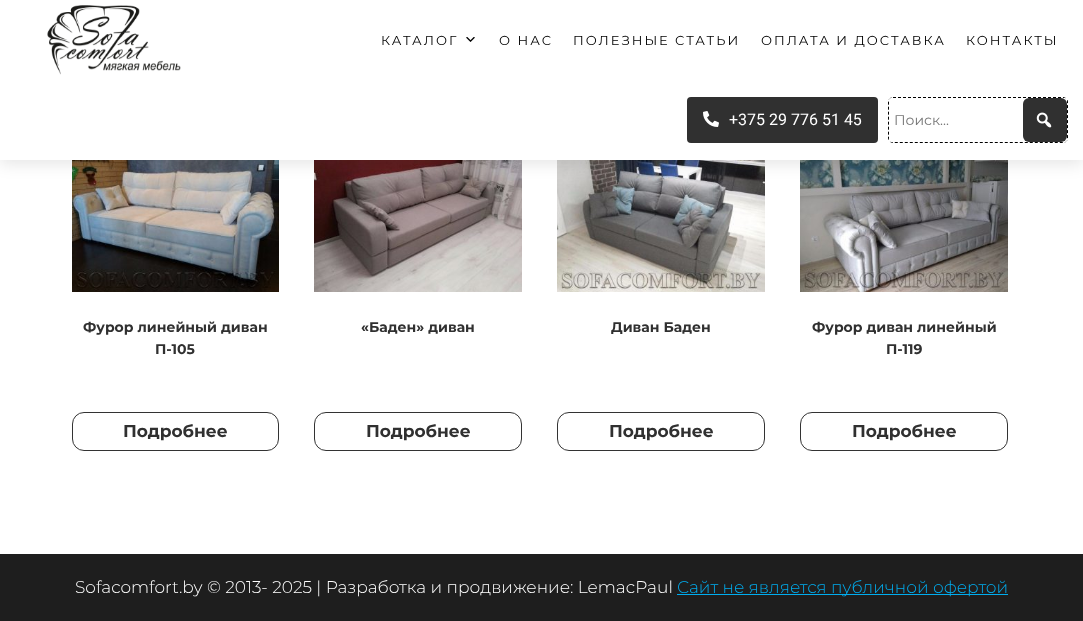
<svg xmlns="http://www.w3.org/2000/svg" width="1083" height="621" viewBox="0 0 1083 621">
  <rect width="100%" height="100%" fill="rgb(255,255,255)"/>
  <image x="72" y="160" width="207" height="132" href="pic5.png"/>
  <image x="314" y="160" width="208" height="132" href="pic6.png"/>
  <image x="557" y="160" width="208" height="132" href="pic7.png"/>
  <image x="800" y="160" width="208" height="132" href="pic8.png"/>
  <rect x="0" y="4" width="1083" height="160" fill="rgba(0,0,0,0.1)" filter="blur(8px)"/>
  <rect x="0" y="0" width="1083" height="160" fill="rgb(255,255,255)"/>
  <image x="47" y="5" width="134" height="70" href="pic1.png"/>
  <text x="381" y="45" font-family="Montserrat" font-size="13" letter-spacing="2" fill="rgb(0,0,0)">КАТАЛОГ</text>
  <image x="466" y="37" width="9" height="5" href="pic2.png"/>
  <g font-family="Montserrat" font-size="13" letter-spacing="2" fill="rgb(0,0,0)">
    <text x="499" y="45">О НАС</text>
    <text x="573" y="45">ПОЛЕЗНЫЕ СТАТЬИ</text>
    <text x="761" y="45">ОПЛАТА И ДОСТАВКА</text>
    <text x="966" y="45">КОНТАКТЫ</text>
  </g>
  <rect x="687" y="97" width="191" height="46" rx="4" fill="rgb(48,48,48)"/>
  <image x="703" y="111" width="16" height="16" href="pic3.png"/>
  <text x="729" y="125" font-family="Roboto" font-size="16" fill="rgb(255,255,255)">+375 29 776 51 45</text>
  <path d="M893 97.5H1063C1065.5 97.5 1067.5 99.5 1067.5 102V138C1067.5 140.5 1065.5 142.5 1063 142.5H893C890.5 142.5 888.5 140.5 888.5 138V102C888.5 99.5 890.5 97.5 893 97.5Z" fill="none" stroke="rgb(0,0,0)" stroke-dasharray="3 2"/>
  <rect x="889" y="98" width="178" height="44" rx="2" fill="rgb(255,255,255)"/>
  <text x="894" y="125" font-family="Montserrat" font-size="14" fill="rgb(117,117,117)">Поиск...</text>
  <rect x="1023" y="98" width="44" height="44" rx="6" fill="rgb(48,48,48)"/>
  <image x="1036" y="112" width="16" height="16" href="pic4.png"/>
  <g font-family="Montserrat" font-size="14" font-weight="bold" fill="rgb(48,48,48)">
    <text x="83" y="332">Фурор линейный диван</text>
    <text x="155" y="354">П-105</text>
  </g>
  <rect x="72.5" y="412.5" width="206" height="38" rx="11.5" fill="none" stroke="rgb(51,51,51)"/>
  <text x="123" y="437" font-family="Montserrat" font-size="17" font-weight="bold" fill="rgb(48,48,48)">Подробнее</text>
  <text x="361" y="332" font-family="Montserrat" font-size="14" font-weight="bold" fill="rgb(48,48,48)">«Баден» диван</text>
  <rect x="314.5" y="412.5" width="207" height="38" rx="11.5" fill="none" stroke="rgb(51,51,51)"/>
  <text x="366" y="437" font-family="Montserrat" font-size="17" font-weight="bold" fill="rgb(48,48,48)">Подробнее</text>
  <text x="611" y="332" font-family="Montserrat" font-size="14" font-weight="bold" fill="rgb(48,48,48)">Диван Баден</text>
  <rect x="557.5" y="412.5" width="207" height="38" rx="11.5" fill="none" stroke="rgb(51,51,51)"/>
  <text x="609" y="437" font-family="Montserrat" font-size="17" font-weight="bold" fill="rgb(48,48,48)">Подробнее</text>
  <g font-family="Montserrat" font-size="14" font-weight="bold" fill="rgb(48,48,48)">
    <text x="812" y="332">Фурор диван линейный</text>
    <text x="886" y="354">П-119</text>
  </g>
  <rect x="800.5" y="412.5" width="207" height="38" rx="11.5" fill="none" stroke="rgb(51,51,51)"/>
  <text x="852" y="437" font-family="Montserrat" font-size="17" font-weight="bold" fill="rgb(48,48,48)">Подробнее</text>
  <rect x="0" y="554" width="1083" height="67" fill="rgb(30,30,30)"/>
  <text x="75" y="593" font-family="Montserrat" font-size="17" font-weight="300" fill="rgb(255,255,255)">Sofacomfort.by © 2013- 2025 | Разработка и продвижение: LemacPaul</text>
  <rect x="677" y="594" width="331" height="1" fill="rgb(0,173,239)"/>
  <text x="677" y="593" font-family="Montserrat" font-size="17" font-weight="300" fill="rgb(0,173,239)">Сайт не является публичной офертой</text>
</svg>
